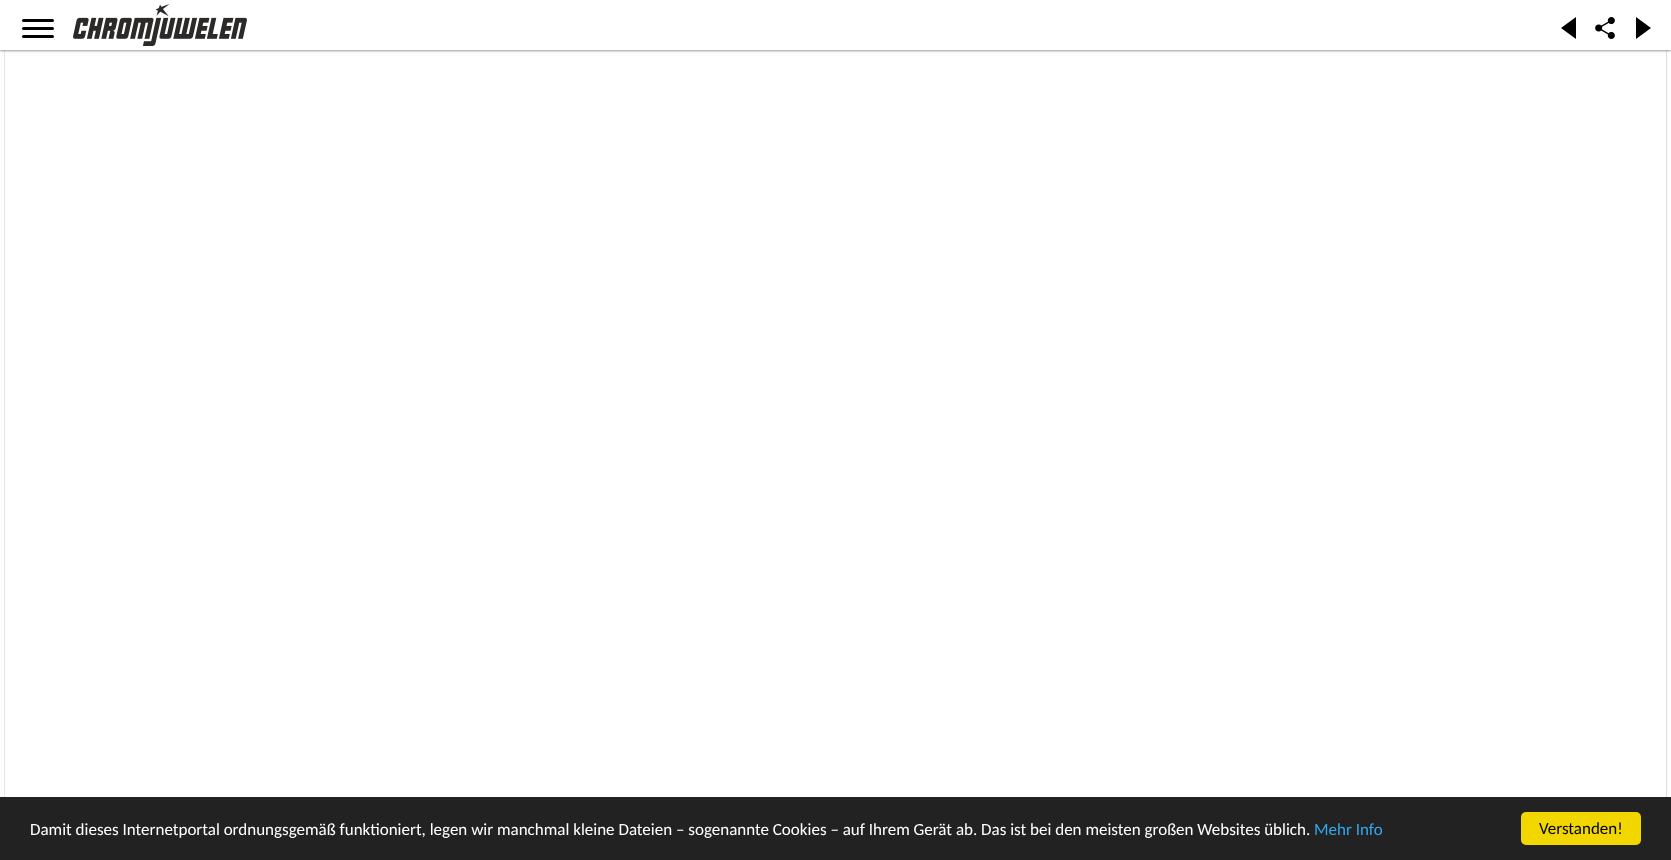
<svg xmlns="http://www.w3.org/2000/svg" width="1671" height="860" viewBox="0 0 1671 860">
  <rect width="100%" height="100%" fill="rgb(255,255,255)"/>
  <rect x="4" y="50" width="1" height="747" fill="rgb(229,229,229)"/>
  <rect x="1666" y="50" width="1" height="747" fill="rgb(221,221,221)"/>
  <rect x="0" y="1" width="1671" height="50" fill="rgb(153,153,153)" filter="blur(1px)"/>
  <rect x="0" y="0" width="1671" height="50" fill="rgb(255,255,255)"/>
  <image x="73" y="4" width="174" height="42" href="pic1.png"/>
  <path d="M1576 17V39L1561 28Z" fill="rgb(0,0,0)"/>
  <path d="M1636 39V17L1651 28Z" fill="rgb(0,0,0)"/>
  <rect x="22" y="19" width="32" height="3" rx="1.5" fill="rgb(0,0,0)"/>
  <rect x="22" y="27" width="32" height="3" rx="1.5" fill="rgb(0,0,0)"/>
  <rect x="22" y="35" width="32" height="3" rx="1.5" fill="rgb(0,0,0)"/>
  <image x="1595" y="17" width="20" height="22" href="pic2.png"/>
  <rect x="0" y="797" width="1671" height="63" fill="rgb(34,34,34)"/>
  <text x="30" y="835" font-family="Carlito" font-size="17" fill="rgb(255,255,255)">Damit dieses Internetportal ordnungsgemäß funktioniert, legen wir manchmal kleine Dateien – sogenannte Cookies – auf Ihrem Gerät ab. Das ist bei den meisten großen Websites üblich.</text>
  <text x="1314" y="835" font-family="Carlito" font-size="17" fill="rgb(49,168,240)">Mehr Info</text>
  <rect x="1521" y="812" width="120" height="33" rx="5" fill="rgb(241,214,0)"/>
  <text x="1539" y="834" font-family="Carlito" font-size="17" fill="rgb(0,0,0)">Verstanden!</text>
</svg>
